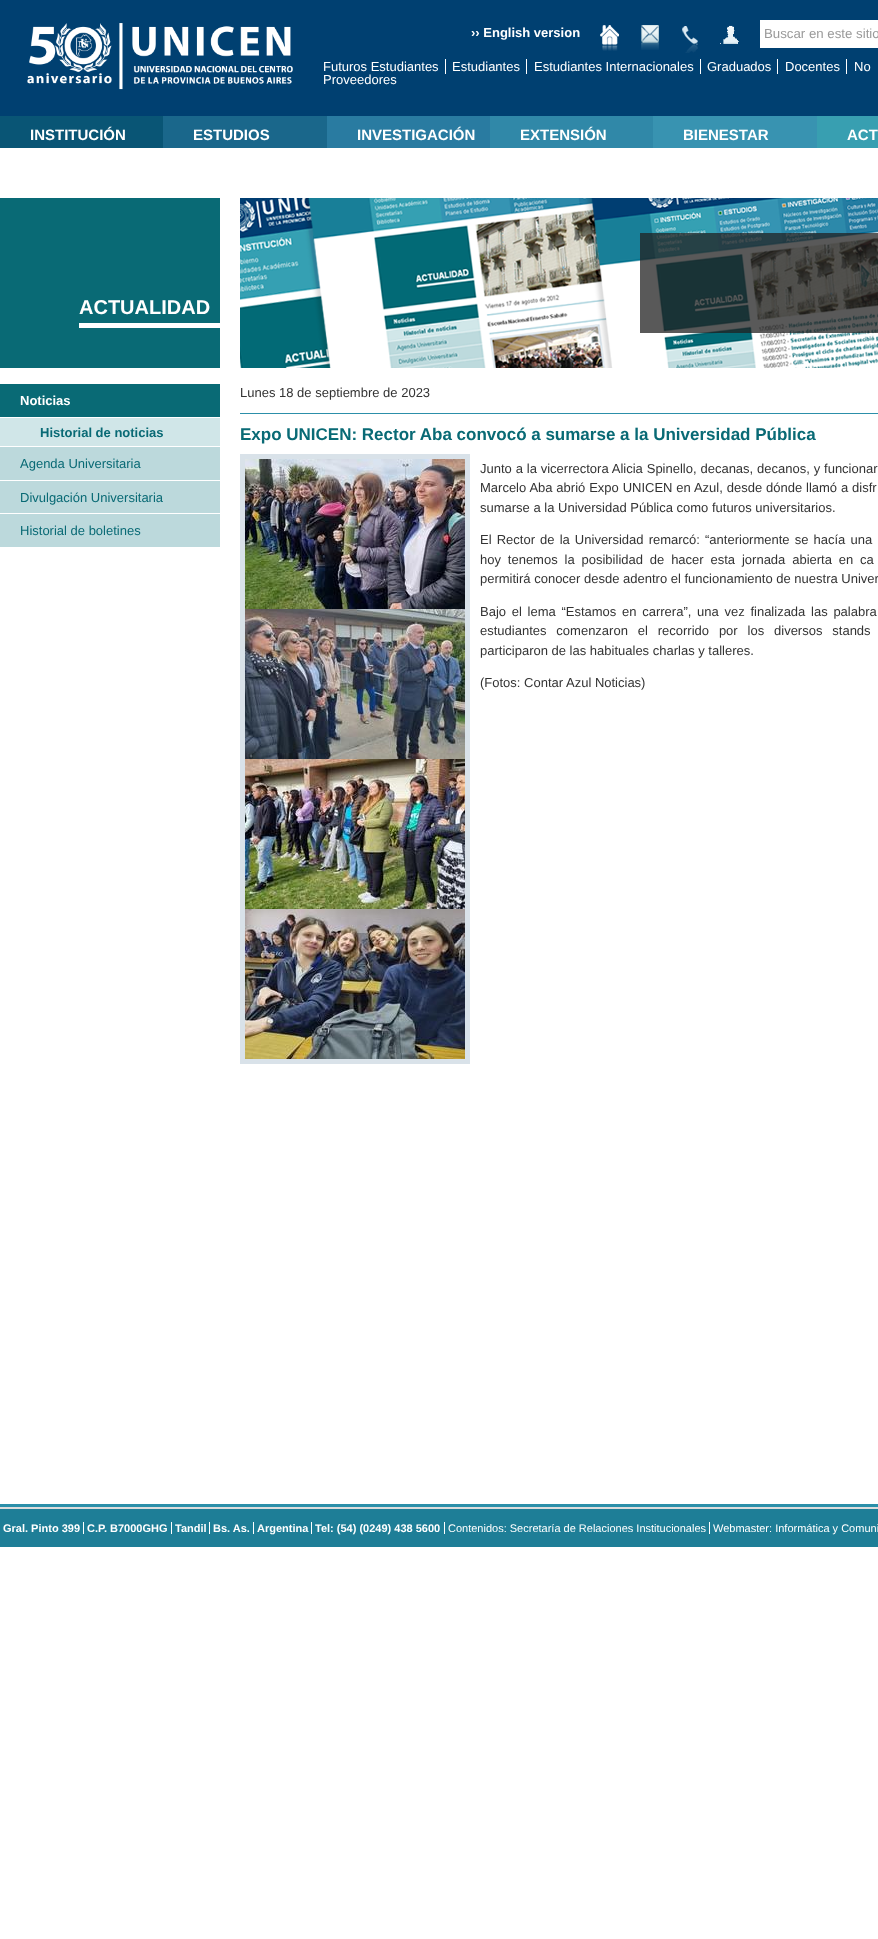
<svg xmlns="http://www.w3.org/2000/svg" width="878" height="1939" viewBox="0 0 878 1939">
  <rect width="100%" height="100%" fill="rgb(255,255,255)"/>
  <rect x="0" y="0" width="878" height="116" fill="rgb(0,64,113)"/>
  <image x="27" y="23" width="266" height="67" href="pic1.png"/>
  <text x="471" y="37" font-family="Liberation Sans" font-size="13" font-weight="bold" fill="rgb(255,255,255)">›› English version</text>
  <image x="600" y="25" width="19" height="26" href="pic2.png"/>
  <image x="641" y="25" width="18" height="25" href="pic3.png"/>
  <image x="682" y="26" width="16" height="27" href="pic4.png"/>
  <image x="720" y="25" width="19" height="19" href="pic5.png"/>
  <rect x="760" y="20" width="118" height="28" fill="rgb(255,255,255)"/>
  <text x="764" y="38" font-family="Liberation Sans" font-size="13.25" fill="rgb(153,153,153)">Buscar en este sitio</text>
  <text x="323" y="71" font-family="Liberation Sans" font-size="13" fill="rgb(255,255,255)">Futuros Estudiantes</text>
  <rect x="445" y="59" width="1" height="15" fill="rgb(255,255,255)"/>
  <text x="452" y="71" font-family="Liberation Sans" font-size="13" fill="rgb(255,255,255)">Estudiantes</text>
  <rect x="526" y="59" width="1" height="15" fill="rgb(255,255,255)"/>
  <text x="534" y="71" font-family="Liberation Sans" font-size="13" fill="rgb(255,255,255)">Estudiantes Internacionales</text>
  <rect x="700" y="59" width="1" height="15" fill="rgb(255,255,255)"/>
  <text x="707" y="71" font-family="Liberation Sans" font-size="13" fill="rgb(255,255,255)">Graduados</text>
  <rect x="777" y="59" width="1" height="15" fill="rgb(255,255,255)"/>
  <text x="785" y="71" font-family="Liberation Sans" font-size="13" fill="rgb(255,255,255)">Docentes</text>
  <rect x="846" y="59" width="1" height="15" fill="rgb(255,255,255)"/>
  <g font-family="Liberation Sans" font-size="13" fill="rgb(255,255,255)">
    <text x="854" y="71">No</text>
    <text x="323" y="84">Proveedores</text>
  </g>
  <rect x="0" y="116" width="163" height="32" fill="rgb(9,85,117)"/>
  <text x="30" y="140" font-family="Liberation Sans" font-size="15" font-weight="bold" fill="rgb(255,255,255)">INSTITUCIÓN</text>
  <rect x="163" y="116" width="164" height="32" fill="rgb(26,103,139)"/>
  <text x="193" y="140" font-family="Liberation Sans" font-size="15" font-weight="bold" fill="rgb(255,255,255)">ESTUDIOS</text>
  <rect x="327" y="116" width="163" height="32" fill="rgb(41,123,161)"/>
  <text x="357" y="140" font-family="Liberation Sans" font-size="15" font-weight="bold" fill="rgb(255,255,255)">INVESTIGACIÓN</text>
  <rect x="490" y="116" width="163" height="32" fill="rgb(48,136,168)"/>
  <text x="520" y="140" font-family="Liberation Sans" font-size="15" font-weight="bold" fill="rgb(255,255,255)">EXTENSIÓN</text>
  <rect x="653" y="116" width="164" height="32" fill="rgb(56,147,177)"/>
  <text x="683" y="140" font-family="Liberation Sans" font-size="15" font-weight="bold" fill="rgb(255,255,255)">BIENESTAR</text>
  <rect x="817" y="116" width="61" height="32" fill="rgb(56,159,177)"/>
  <text x="847" y="140" font-family="Liberation Sans" font-size="15" font-weight="bold" fill="rgb(255,255,255)">ACT</text>
  <rect x="0" y="1504" width="878" height="3" fill="rgb(44,143,169)"/>
  <rect x="0" y="198" width="220" height="170" fill="rgb(9,106,117)"/>
  <rect x="79" y="323" width="141" height="5" fill="rgb(255,255,255)"/>
  <text x="79" y="314" font-family="Liberation Sans" font-size="20" font-weight="bold" fill="rgb(255,255,255)">ACTUALIDAD</text>
  <rect x="0" y="384" width="220" height="33" fill="rgb(9,106,117)"/>
  <text x="20" y="405" font-family="Liberation Sans" font-size="13" font-weight="bold" fill="rgb(255,255,255)">Noticias</text>
  <rect x="0" y="418" width="220" height="28" fill="rgb(208,230,232)"/>
  <text x="40" y="437" font-family="Liberation Sans" font-size="13" font-weight="bold" fill="rgb(9,106,117)">Historial de noticias</text>
  <rect x="0" y="447" width="220" height="33" fill="rgb(188,217,220)"/>
  <text x="20" y="468" font-family="Liberation Sans" font-size="13" fill="rgb(9,106,117)">Agenda Universitaria</text>
  <rect x="0" y="481" width="220" height="32" fill="rgb(188,217,220)"/>
  <text x="20" y="502" font-family="Liberation Sans" font-size="13" fill="rgb(9,106,117)">Divulgación Universitaria</text>
  <rect x="0" y="514" width="220" height="33" fill="rgb(188,217,220)"/>
  <text x="20" y="535" font-family="Liberation Sans" font-size="13" fill="rgb(9,106,117)">Historial de boletines</text>
  <image x="240" y="198" width="638" height="170" href="pic6.png"/>
  <rect x="640" y="233" width="238" height="100" fill="rgba(34,34,34,0.75)"/>
  <rect x="240" y="413" width="638" height="1" fill="rgb(44,143,169)"/>
  <text x="240" y="397" font-family="Liberation Sans" font-size="13" fill="rgb(51,51,51)">Lunes 18 de septiembre de 2023</text>
  <text x="240" y="440" font-family="Liberation Sans" font-size="17" font-weight="bold" fill="rgb(9,106,117)">Expo UNICEN: Rector Aba convocó a sumarse a la Universidad Pública</text>
  <rect x="240" y="454" width="230" height="610" fill="rgb(217,226,233)"/>
  <image x="245" y="459" width="220" height="150" href="pic7.png"/>
  <image x="245" y="609" width="220" height="150" href="pic8.png"/>
  <image x="245" y="759" width="220" height="150" href="pic9.png"/>
  <image x="245" y="909" width="220" height="150" href="pic10.png"/>
  <g font-family="Liberation Sans" font-size="13" fill="rgb(51,51,51)">
    <text>
      <tspan x="480" y="473" word-spacing="0.25">Junto a la vicerrectora Alicia Spinello, decanas, decanos, y funcionar</tspan>
      <tspan x="480" y="492" word-spacing="0.25">Marcelo Aba abrió Expo UNICEN en Azul, desde dónde llamó a disfr</tspan>
      <tspan x="480" y="512">sumarse a la Universidad Pública como futuros universitarios.</tspan>
    </text>
    <text>
      <tspan x="480" y="544" word-spacing="1.5">El Rector de la Universidad remarcó: “anteriormente se hacía una</tspan>
      <tspan x="480" y="564" word-spacing="3.25">hoy tenemos la posibilidad de hacer esta jornada abierta en ca</tspan>
      <tspan x="480" y="583">permitirá conocer desde adentro el funcionamiento de nuestra Univer</tspan>
    </text>
    <text>
      <tspan x="480" y="616" word-spacing="2.1">Bajo el lema “Estamos en carrera”, una vez finalizada las palabra</tspan>
      <tspan x="480" y="635" word-spacing="6.25">estudiantes comenzaron el recorrido por los diversos stands</tspan>
      <tspan x="480" y="655">participaron de las habituales charlas y talleres.</tspan>
    </text>
    <text x="480" y="687">(Fotos: Contar Azul Noticias)</text>
  </g>
  <rect x="0" y="1509" width="878" height="38" fill="rgb(30,126,151)"/>
  <rect x="0" y="1507" width="878" height="2" fill="rgb(221,221,221)"/>
  <rect x="83" y="1522" width="1" height="12" fill="rgb(255,255,255)"/>
  <text x="3" y="1532" font-family="Liberation Sans" font-size="11" font-weight="bold" fill="rgb(255,255,255)">Gral. Pinto 399</text>
  <rect x="171" y="1522" width="1" height="12" fill="rgb(255,255,255)"/>
  <text x="87" y="1532" font-family="Liberation Sans" font-size="11" font-weight="bold" fill="rgb(255,255,255)">C.P. B7000GHG</text>
  <rect x="209" y="1522" width="1" height="12" fill="rgb(255,255,255)"/>
  <text x="175" y="1532" font-family="Liberation Sans" font-size="11" font-weight="bold" fill="rgb(255,255,255)">Tandil</text>
  <rect x="253" y="1522" width="1" height="12" fill="rgb(255,255,255)"/>
  <text x="213" y="1532" font-family="Liberation Sans" font-size="11" font-weight="bold" fill="rgb(255,255,255)">Bs. As.</text>
  <rect x="311" y="1522" width="1" height="12" fill="rgb(255,255,255)"/>
  <text x="257" y="1532" font-family="Liberation Sans" font-size="11" font-weight="bold" fill="rgb(255,255,255)">Argentina</text>
  <rect x="444" y="1522" width="1" height="12" fill="rgb(255,255,255)"/>
  <text x="315" y="1532" font-family="Liberation Sans" font-size="11" font-weight="bold" fill="rgb(255,255,255)">Tel: (54) (0249) 438 5600</text>
  <rect x="709" y="1522" width="1" height="12" fill="rgb(255,255,255)"/>
  <g font-family="Liberation Sans" font-size="11" fill="rgb(255,255,255)">
    <text x="448" y="1532">Contenidos: Secretaría de Relaciones Institucionales</text>
    <text x="713" y="1532">Webmaster: Informática y Comuni</text>
  </g>
</svg>
